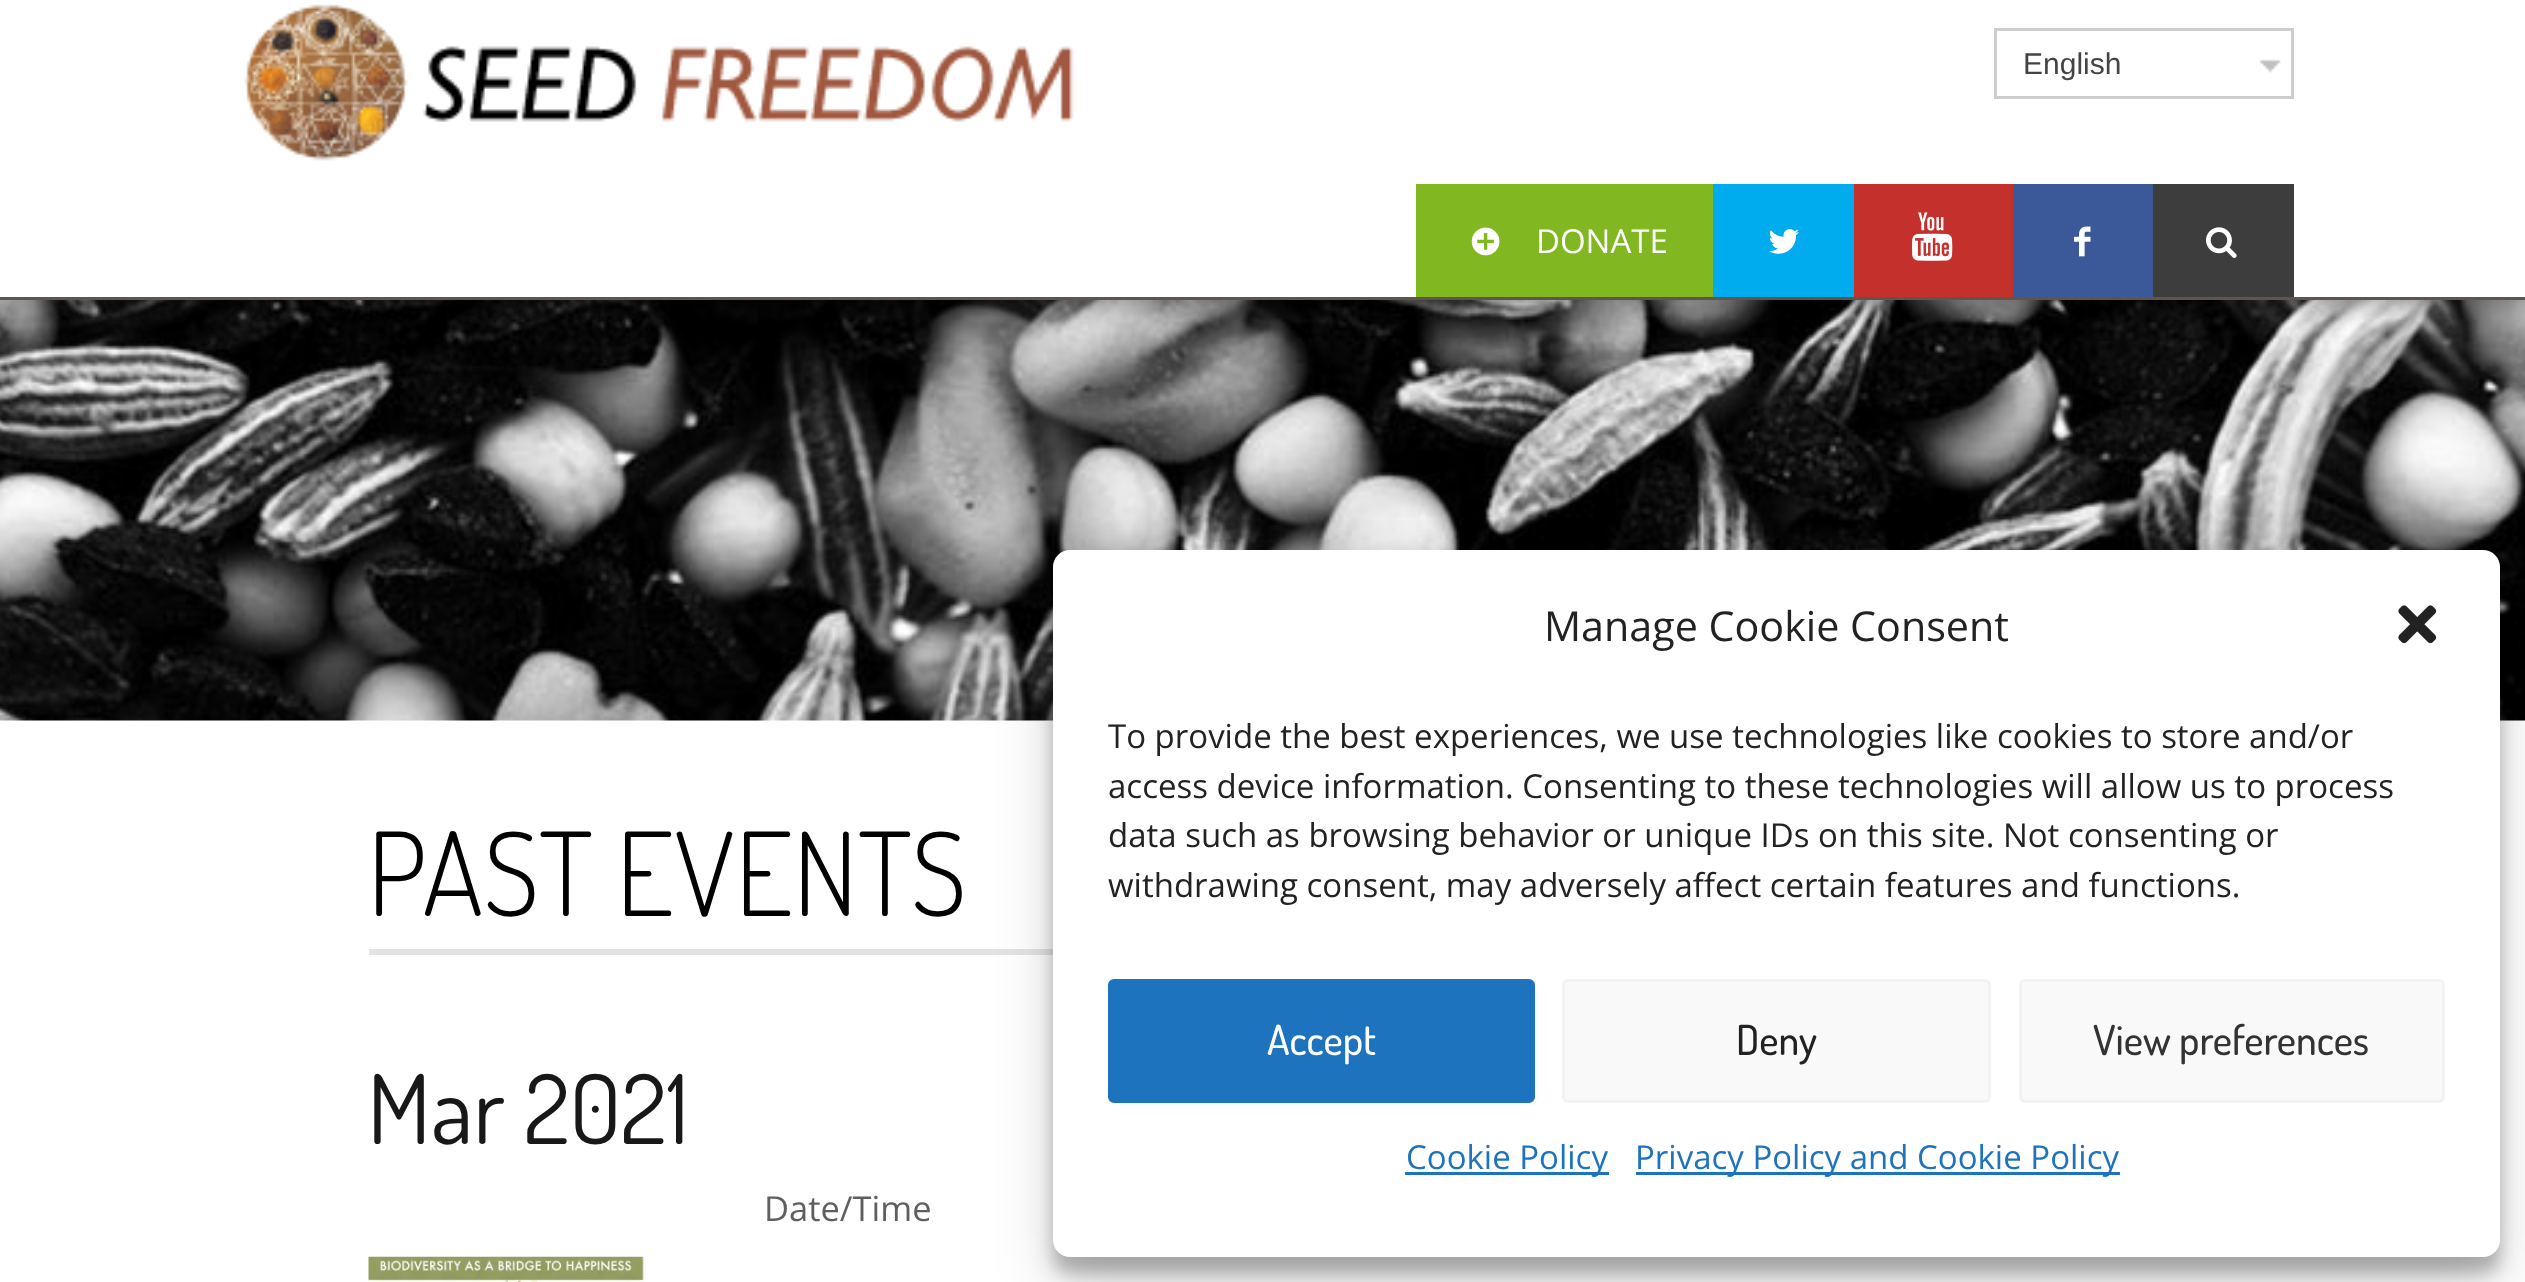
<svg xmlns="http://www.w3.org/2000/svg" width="2525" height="1282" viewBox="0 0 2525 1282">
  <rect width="100%" height="100%" fill="rgb(255,255,255)"/>
  <image x="0" y="300" width="2525" height="421" href="pic8.png"/>
  <rect x="0" y="0" width="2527" height="300" fill="rgba(0,0,0,0.5)" filter="blur(16.5px)"/>
  <rect x="0" y="0" width="2525" height="297" fill="rgb(255,255,255)"/>
  <rect x="0" y="297" width="2525" height="3" fill="rgb(95,85,75)"/>
  <image x="244" y="4" width="830" height="157" href="pic1.png"/>
  <image x="2259" y="59" width="22" height="14" href="pic2.png"/>
  <rect x="1995.5" y="29.5" width="297" height="68" fill="none" stroke="rgb(205,205,205)" stroke-width="3"/>
  <text x="2023" y="74" font-family="Liberation Sans" font-size="30" fill="rgb(68,68,68)">English</text>
  <rect x="1416" y="184" width="297" height="113" fill="rgb(129,183,33)"/>
  <image x="1471" y="227" width="29" height="29" href="pic3.png"/>
  <text x="1536" y="253" font-family="Open Sans" font-size="33" fill="rgb(255,255,255)">DONATE</text>
  <rect x="1713" y="184" width="141" height="113" fill="rgb(0,172,238)"/>
  <image x="1769" y="229" width="30" height="25" href="pic4.png"/>
  <rect x="1854" y="184" width="159" height="113" fill="rgb(196,48,43)"/>
  <image x="1911" y="212" width="42" height="49" href="pic5.png"/>
  <rect x="2013" y="184" width="140" height="113" fill="rgb(59,89,152)"/>
  <image x="2074" y="226" width="17" height="31" href="pic6.png"/>
  <rect x="2153" y="184" width="141" height="113" fill="rgb(61,61,61)"/>
  <image x="2206" y="227" width="31" height="31" href="pic7.png"/>
  <rect x="369" y="949" width="684" height="6" fill="rgb(227,227,227)"/>
  <text x="367" y="916" font-family="Dosis" font-size="115.5" font-weight="300" fill="rgb(0,0,0)">PAST EVENTS</text>
  <text x="367" y="1144" font-family="Dosis" font-size="96" fill="rgb(24,24,24)">Mar 2021</text>
  <text x="764" y="1221" font-family="Open Sans" font-size="34.5" fill="rgb(95,95,95)">Date/Time</text>
  <image x="368" y="1256" width="276" height="26" href="pic9.png"/>
  <rect x="1053" y="567" width="1447" height="706" rx="17" fill="rgba(0,0,0,0.23)" filter="blur(8px)"/>
  <rect x="1053" y="578" width="1447" height="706" rx="17" fill="rgba(0,0,0,0.19)" filter="blur(27.5px)"/>
  <rect x="1053" y="550" width="1447" height="707" rx="17" fill="rgb(255,255,255)"/>
  <text x="1544" y="641" font-family="Open Sans" font-size="41.25" fill="rgb(34,34,34)">Manage Cookie Consent</text>
  <image x="2398" y="605" width="39" height="39" href="pic10.png"/>
  <g font-family="Open Sans" font-size="33" fill="rgb(34,34,34)">
    <text>
      <tspan x="1108" y="748">To provide the best experiences, we use technologies like cookies to store and/or</tspan>
      <tspan x="1108" y="798">access device information. Consenting to these technologies will allow us to process</tspan>
      <tspan x="1108" y="847">data such as browsing behavior or unique IDs on this site. Not consenting or</tspan>
      <tspan x="1108" y="897">withdrawing consent, may adversely affect certain features and functions.</tspan>
    </text>
  </g>
  <rect x="1109.5" y="980.5" width="424" height="121" rx="4.5" fill="rgb(30,115,190)" stroke="rgb(30,115,190)" stroke-width="3"/>
  <text x="1267" y="1055" font-family="Dosis" font-size="41.25" font-weight="500" fill="rgb(255,255,255)">Accept</text>
  <rect x="1563.5" y="980.5" width="426" height="121" rx="4.5" fill="rgb(249,249,249)" stroke="rgb(242,242,242)" stroke-width="3"/>
  <text x="1736" y="1055" font-family="Dosis" font-size="41.25" font-weight="500" fill="rgb(34,34,34)">Deny</text>
  <rect x="2020.5" y="980.5" width="423" height="121" rx="4.5" fill="rgb(249,249,249)" stroke="rgb(242,242,242)" stroke-width="3"/>
  <text x="2093" y="1055" font-family="Dosis" font-size="41.25" font-weight="500" fill="rgb(51,51,51)">View preferences</text>
  <rect x="1405" y="1172" width="204" height="3" fill="rgb(30,115,190)"/>
  <text x="1406" y="1169" font-family="Open Sans" font-size="33" fill="rgb(30,115,190)">Cookie Policy</text>
  <rect x="1636" y="1172" width="484" height="3" fill="rgb(30,115,190)"/>
  <text x="1635" y="1169" font-family="Open Sans" font-size="33" fill="rgb(30,115,190)">Privacy Policy and Cookie Policy</text>
</svg>
